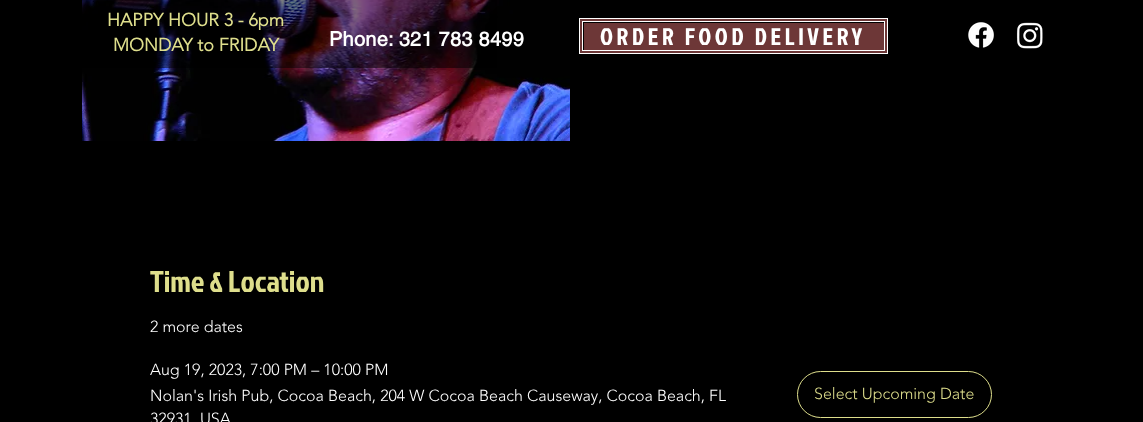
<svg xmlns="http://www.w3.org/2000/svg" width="1143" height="422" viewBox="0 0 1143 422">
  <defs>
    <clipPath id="clip1"><rect x="583" y="22" width="301" height="28"/></clipPath>
  </defs>
  <rect width="100%" height="100%" fill="rgb(0,0,0)"/>
  <image x="82" y="0" width="488" height="141" href="pic3.png"/>
  <rect x="82" y="0" width="415" height="68" fill="rgba(0,0,0,0.51)"/>
  <g font-family="'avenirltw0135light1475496'" font-size="18" font-weight="bold" fill="rgb(222,222,140)">
    <text x="107" y="26">HAPPY HOUR 3 - 6pm</text>
    <text x="113" y="51">MONDAY to FRIDAY</text>
  </g>
  <text x="329" y="46" font-family="helvetica" font-size="20" font-weight="bold" letter-spacing="0.25" fill="rgb(255,255,255)">Phone: 321 783 8499</text>
  <rect x="580" y="19" width="307" height="34" fill="rgb(109,55,55)"/>
  <g clip-path="url(#clip1)">
    <path d="M484-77H983V149H484ZM584 23H885V51H584Z" fill="rgb(0,0,0)" fill-rule="evenodd"/>
  </g>
  <rect x="579.5" y="18.5" width="308" height="35" fill="none" stroke="rgb(255,255,255)"/>
  <rect x="582.5" y="21.5" width="302" height="29" fill="none" stroke="rgb(255,255,255)"/>
  <text x="600" y="45" font-family="Jockey One" font-size="24" letter-spacing="3.6" fill="rgb(255,255,255)">ORDER FOOD DELIVERY</text>
  <image x="968" y="22" width="26" height="26" href="pic1.png"/>
  <image x="1016" y="22" width="27" height="27" href="pic2.png"/>
  <text x="150" y="292" font-family="Jockey One" font-size="30" fill="rgb(222,222,140)">Time &amp; Location</text>
  <g font-family="'avenirltw0135light1475496'" font-size="16" font-weight="300" fill="rgb(255,255,255)">
    <text x="150" y="332">2 more dates</text>
    <text>
      <tspan x="150" y="375">Aug 19, 2023, 7:00 PM – 10:00 PM</tspan>
      <tspan x="150" y="401">Nolan's Irish Pub, Cocoa Beach, 204 W Cocoa Beach Causeway, Cocoa Beach, FL</tspan>
      <tspan x="150" y="424">32931, USA</tspan>
    </text>
  </g>
  <rect x="797.5" y="371.5" width="194" height="46" rx="23" fill="none" stroke="rgb(222,222,140)"/>
  <text x="814" y="399" font-family="'avenirltw0135light1475496'" font-size="16" font-weight="300" fill="rgb(222,222,140)">Select Upcoming Date</text>
</svg>
